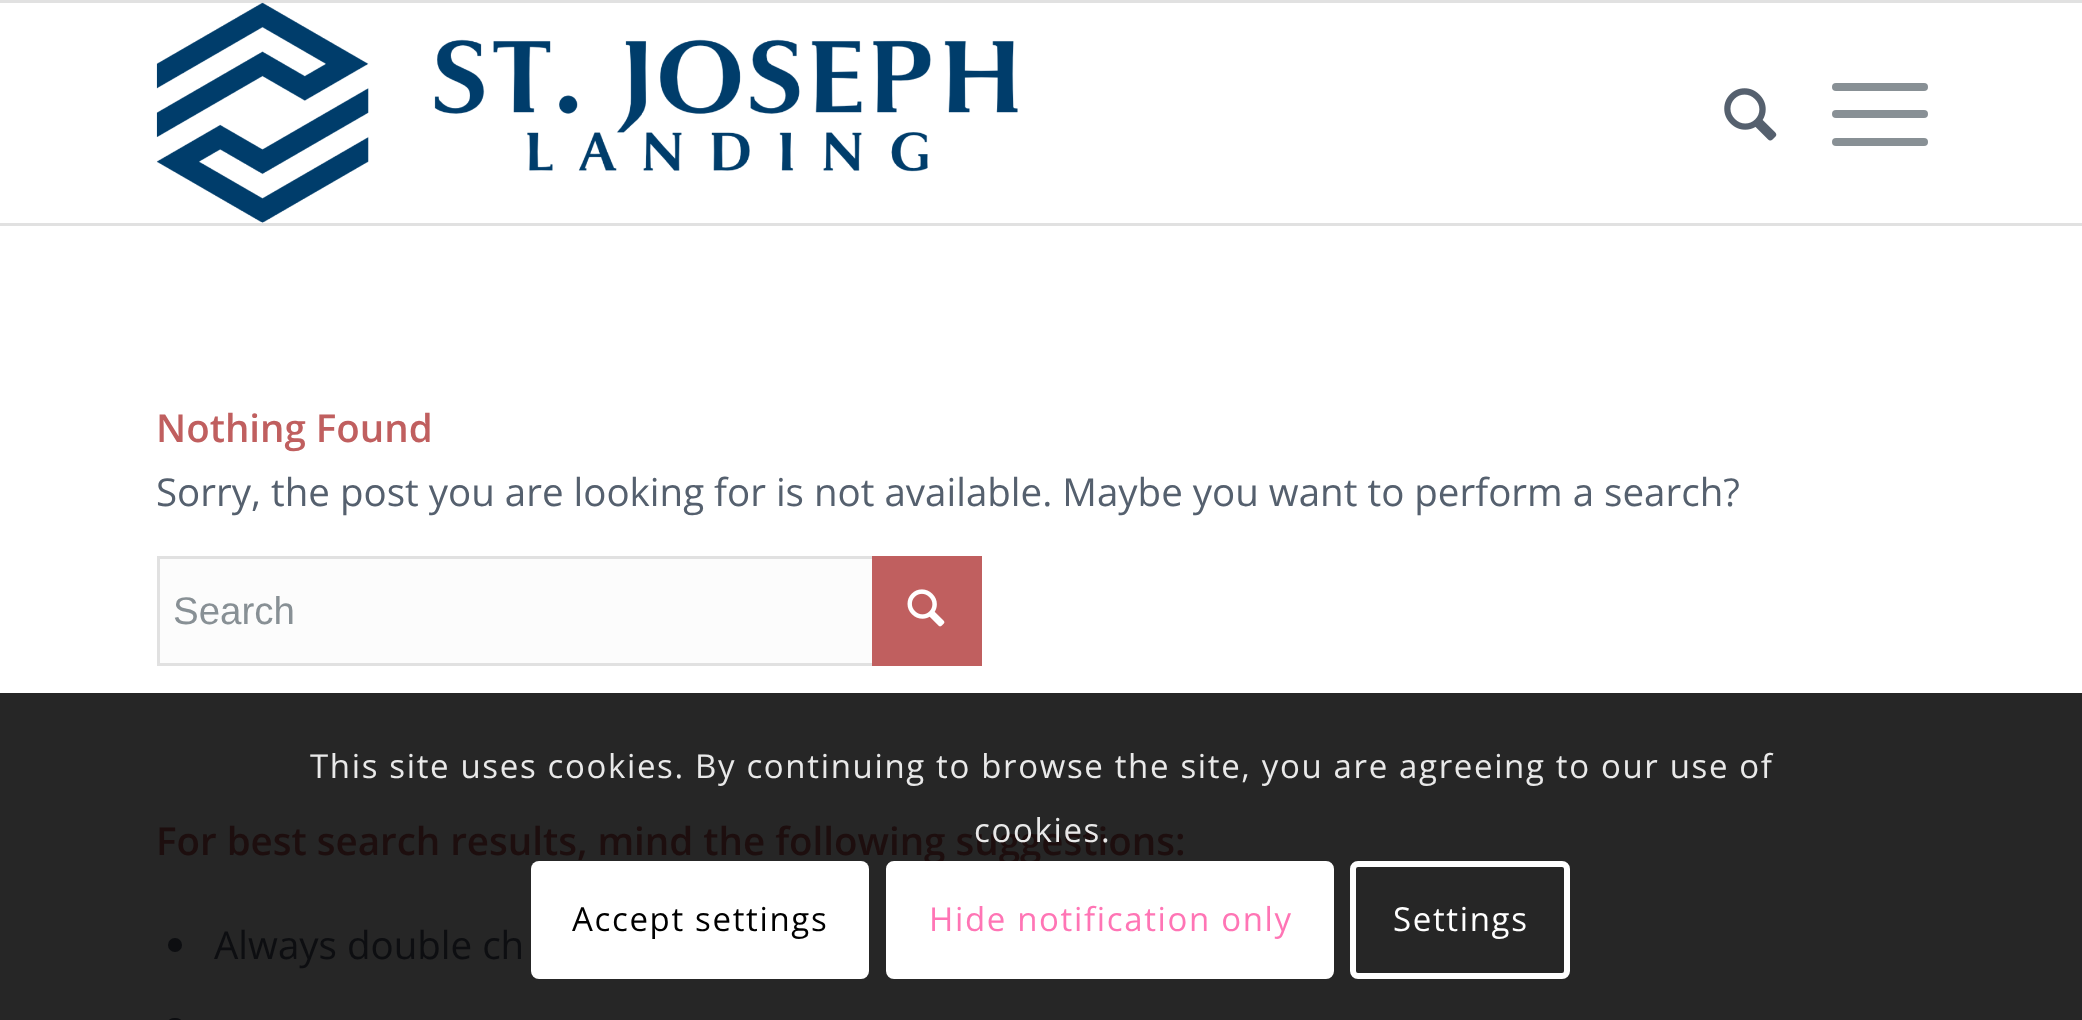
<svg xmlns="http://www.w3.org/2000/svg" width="2082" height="1020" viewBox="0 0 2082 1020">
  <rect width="100%" height="100%" fill="rgb(255,255,255)"/>
  <rect x="0" y="0" width="2082" height="3" fill="rgb(225,225,225)"/>
  <rect x="0" y="223" width="2082" height="3" fill="rgb(225,225,225)"/>
  <image x="156" y="2" width="862" height="221" href="pic1.png"/>
  <image x="1724" y="88" width="53" height="53" href="pic2.png"/>
  <rect x="1832" y="110" width="96" height="8" rx="4" fill="rgb(136,144,149)"/>
  <rect x="1832" y="83" width="96" height="8" rx="4" fill="rgb(136,144,149)"/>
  <rect x="1832" y="138" width="96" height="8" rx="4" fill="rgb(136,144,149)"/>
  <rect x="0" y="693" width="2082" height="327" fill="rgb(38,38,38)"/>
  <text x="156" y="442" font-family="Open Sans" font-size="38.5" font-weight="600" fill="rgb(192,95,95)">Nothing Found</text>
  <text x="156" y="506" font-family="Open Sans" font-size="38.5" fill="rgb(85,96,110)">Sorry, the post you are looking for is not available. Maybe you want to perform a search?</text>
  <rect x="160" y="559" width="712" height="104" fill="rgb(252,252,252)"/>
  <rect x="158.5" y="557.5" width="822" height="107" fill="none" stroke="rgb(225,225,225)" stroke-width="3"/>
  <text x="173" y="624" font-family="Liberation Sans" font-size="38.5" fill="rgb(136,144,149)">Search</text>
  <rect x="872" y="556" width="110" height="110" fill="rgb(192,95,95)"/>
  <image x="907" y="589" width="38" height="38" href="pic3.png"/>
  <text x="156" y="855" font-family="Open Sans" font-size="38.5" font-weight="600" fill="rgb(29,14,14)">For best search results, mind the following suggestions:</text>
  <circle cx="175" cy="945" r="7" fill="rgb(13,14,17)"/>
  <text x="214" y="959" font-family="Open Sans" font-size="38.5" fill="rgb(13,14,17)">Always double ch</text>
  <rect x="168" y="1018" width="14" height="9" rx="6.5" fill="rgb(13,14,17)"/>
  <g font-family="Open Sans" font-size="33" letter-spacing="1.65" fill="rgb(233,233,233)">
    <text x="310" y="778">This site uses cookies. By continuing to browse the site, you are agreeing to our use of</text>
    <text x="974" y="842">cookies.</text>
  </g>
  <rect x="531" y="861" width="338" height="118" rx="8" fill="rgb(255,255,255)"/>
  <text x="572" y="931" font-family="Open Sans" font-size="33" letter-spacing="1.65" fill="rgb(0,0,0)">Accept settings</text>
  <rect x="889" y="864" width="442" height="112" rx="5" fill="rgb(255,255,255)" stroke="rgb(255,255,255)" stroke-width="6"/>
  <text x="929" y="931" font-family="Open Sans" font-size="33" letter-spacing="1.65" fill="rgb(255,117,181)">Hide notification only</text>
  <rect x="1353" y="864" width="214" height="112" rx="5" fill="none" stroke="rgb(255,255,255)" stroke-width="6"/>
  <text x="1393" y="931" font-family="Open Sans" font-size="33" letter-spacing="1.65" fill="rgb(255,255,255)">Settings</text>
</svg>
